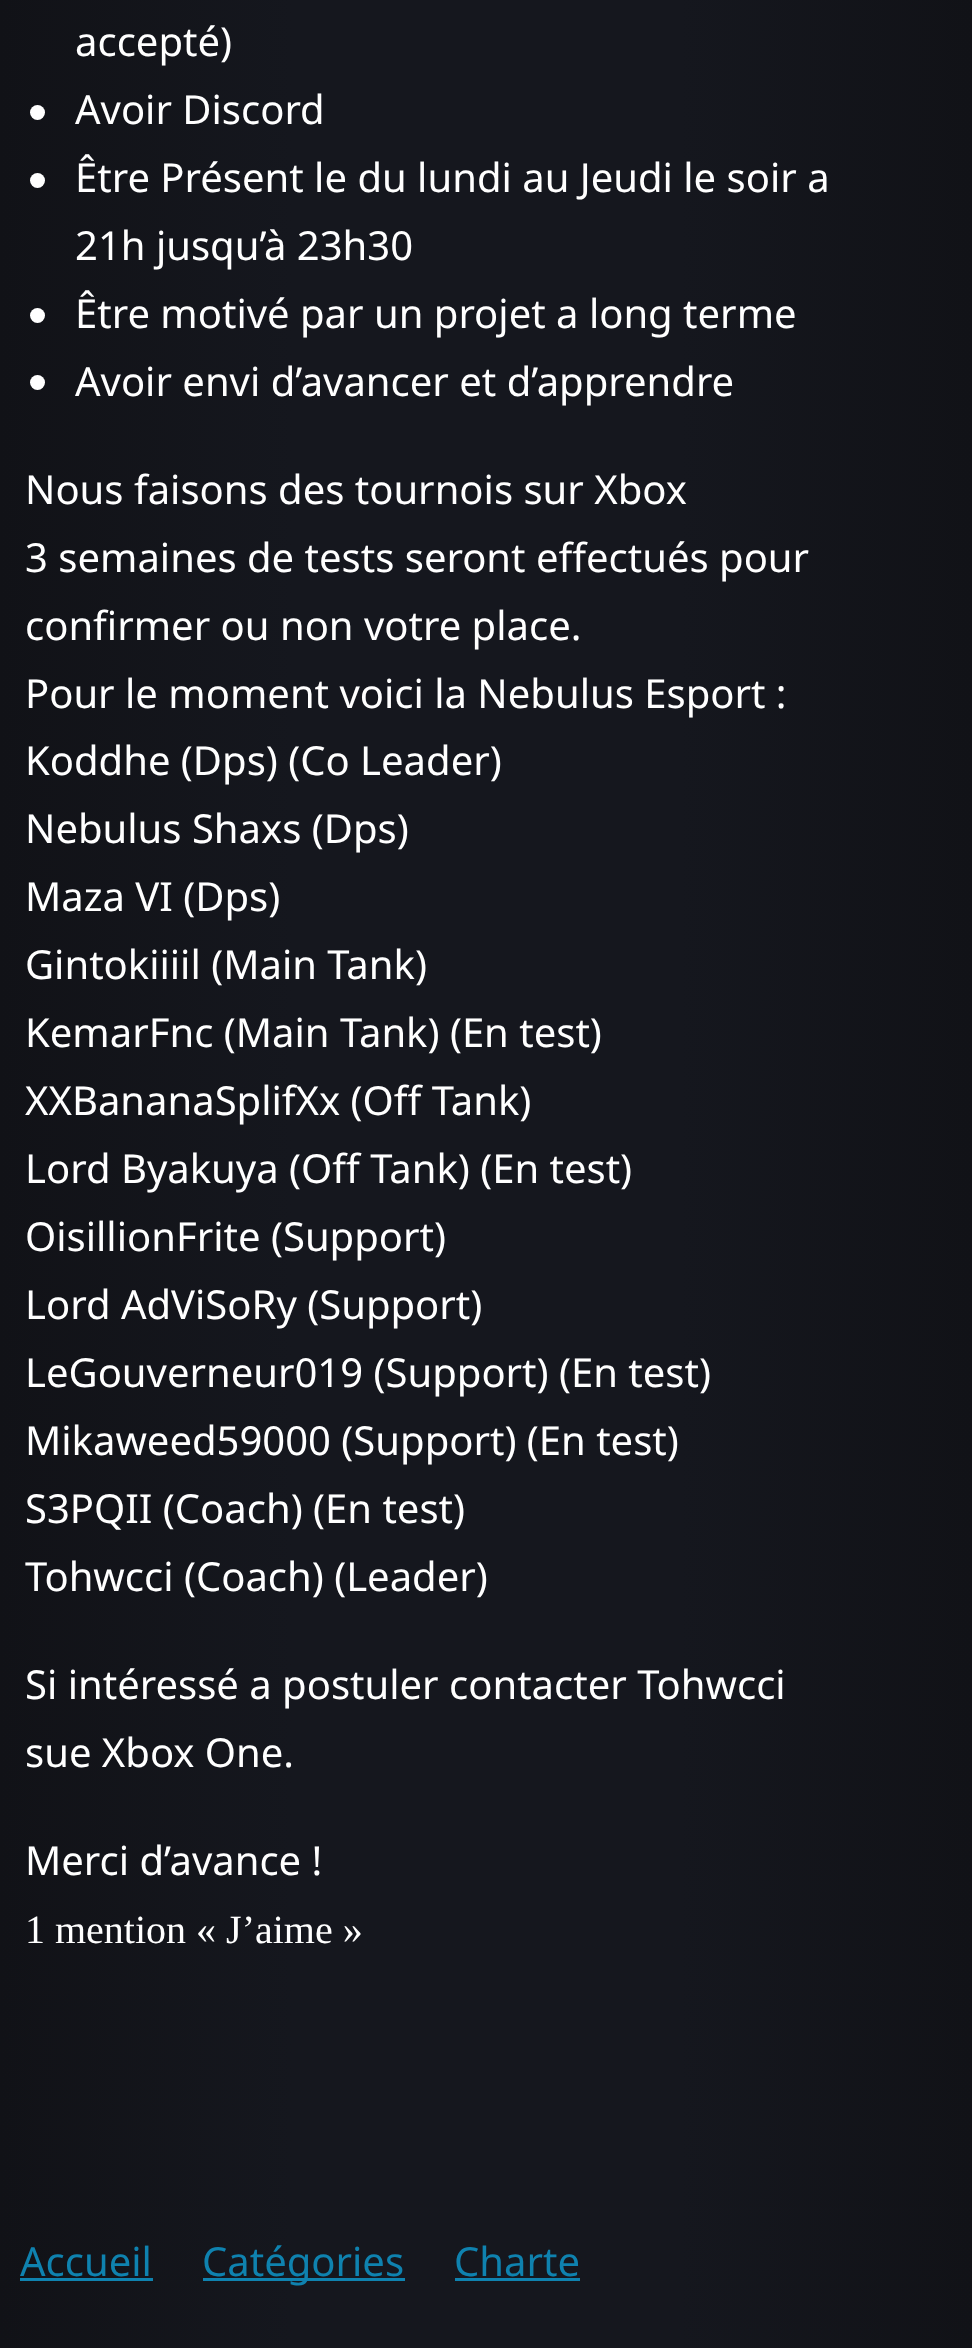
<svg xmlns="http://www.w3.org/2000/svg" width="972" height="2348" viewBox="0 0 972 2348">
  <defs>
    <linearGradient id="g1" gradientUnits="userSpaceOnUse" x1="0" y1="781" x2="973" y2="781"><stop offset="0" stop-color="rgb(17,18,23)"/><stop offset="0.3" stop-color="rgb(21,23,30)"/><stop offset="0.7" stop-color="rgb(21,23,30)"/><stop offset="1" stop-color="rgb(17,18,23)"/></linearGradient>
  </defs>
  <rect width="100%" height="100%" fill="rgb(255,255,255)"/>
  <rect x="0" y="0" width="972" height="2348" fill="url(#g1)"/>
  <text x="75" y="56" font-family="Noto Sans" font-size="40" fill="rgb(255,255,255)">accepté)</text>
  <circle cx="37.5" cy="112.5" r="7.5" fill="rgb(255,255,255)"/>
  <text x="75" y="124" font-family="Noto Sans" font-size="40" fill="rgb(255,255,255)">Avoir Discord</text>
  <circle cx="37.5" cy="180.5" r="7.5" fill="rgb(255,255,255)"/>
  <g font-family="Noto Sans" font-size="40" fill="rgb(255,255,255)">
    <text>
      <tspan x="75" y="192">Être Présent le du lundi au Jeudi le soir a</tspan>
      <tspan x="75" y="260">21h jusqu’à 23h30</tspan>
    </text>
  </g>
  <circle cx="37.5" cy="315.5" r="7.5" fill="rgb(255,255,255)"/>
  <text x="75" y="328" font-family="Noto Sans" font-size="40" fill="rgb(255,255,255)">Être motivé par un projet a long terme</text>
  <circle cx="37.5" cy="382.5" r="7.5" fill="rgb(255,255,255)"/>
  <g font-family="Noto Sans" font-size="40" fill="rgb(255,255,255)">
    <text x="75" y="396">Avoir envi d’avancer et d’apprendre</text>
    <text>
      <tspan x="25" y="504">Nous faisons des tournois sur Xbox</tspan>
      <tspan x="25" y="572">3 semaines de tests seront effectués pour</tspan>
      <tspan x="25" y="640">confirmer ou non votre place.</tspan>
      <tspan x="25" y="708">Pour le moment voici la Nebulus Esport :</tspan>
      <tspan x="25" y="775">Koddhe (Dps) (Co Leader)</tspan>
      <tspan x="25" y="843">Nebulus Shaxs (Dps)</tspan>
      <tspan x="25" y="911">Maza VI (Dps)</tspan>
      <tspan x="25" y="979">Gintokiiiil (Main Tank)</tspan>
      <tspan x="25" y="1047">KemarFnc (Main Tank) (En test)</tspan>
      <tspan x="25" y="1115">XXBananaSplifXx (Off Tank)</tspan>
      <tspan x="25" y="1183">Lord Byakuya (Off Tank) (En test)</tspan>
      <tspan x="25" y="1251">OisillionFrite (Support)</tspan>
      <tspan x="25" y="1319">Lord AdViSoRy (Support)</tspan>
      <tspan x="25" y="1387">LeGouverneur019 (Support) (En test)</tspan>
      <tspan x="25" y="1455">Mikaweed59000 (Support) (En test)</tspan>
      <tspan x="25" y="1523">S3PQII (Coach) (En test)</tspan>
      <tspan x="25" y="1591">Tohwcci (Coach) (Leader)</tspan>
    </text>
    <text>
      <tspan x="25" y="1699">Si intéressé a postuler contacter Tohwcci</tspan>
      <tspan x="25" y="1767">sue Xbox One.</tspan>
    </text>
    <text x="25" y="1875">Merci d’avance !</text>
  </g>
  <text x="25" y="1943" font-family="Liberation Serif" font-size="40" fill="rgb(255,255,255)">1 mention « J’aime »</text>
  <text x="20" y="2276" font-family="Noto Sans" font-size="40" fill="rgb(15,130,175)">Accueil</text>
  <rect x="20" y="2278" width="133" height="3" fill="rgb(15,130,175)"/>
  <rect x="203" y="2278" width="202" height="3" fill="rgb(15,130,175)"/>
  <g font-family="Noto Sans" font-size="40" fill="rgb(15,130,175)">
    <text x="202" y="2276">Catégories</text>
    <text x="454" y="2276">Charte</text>
  </g>
  <rect x="455" y="2278" width="125" height="3" fill="rgb(15,130,175)"/>
</svg>
